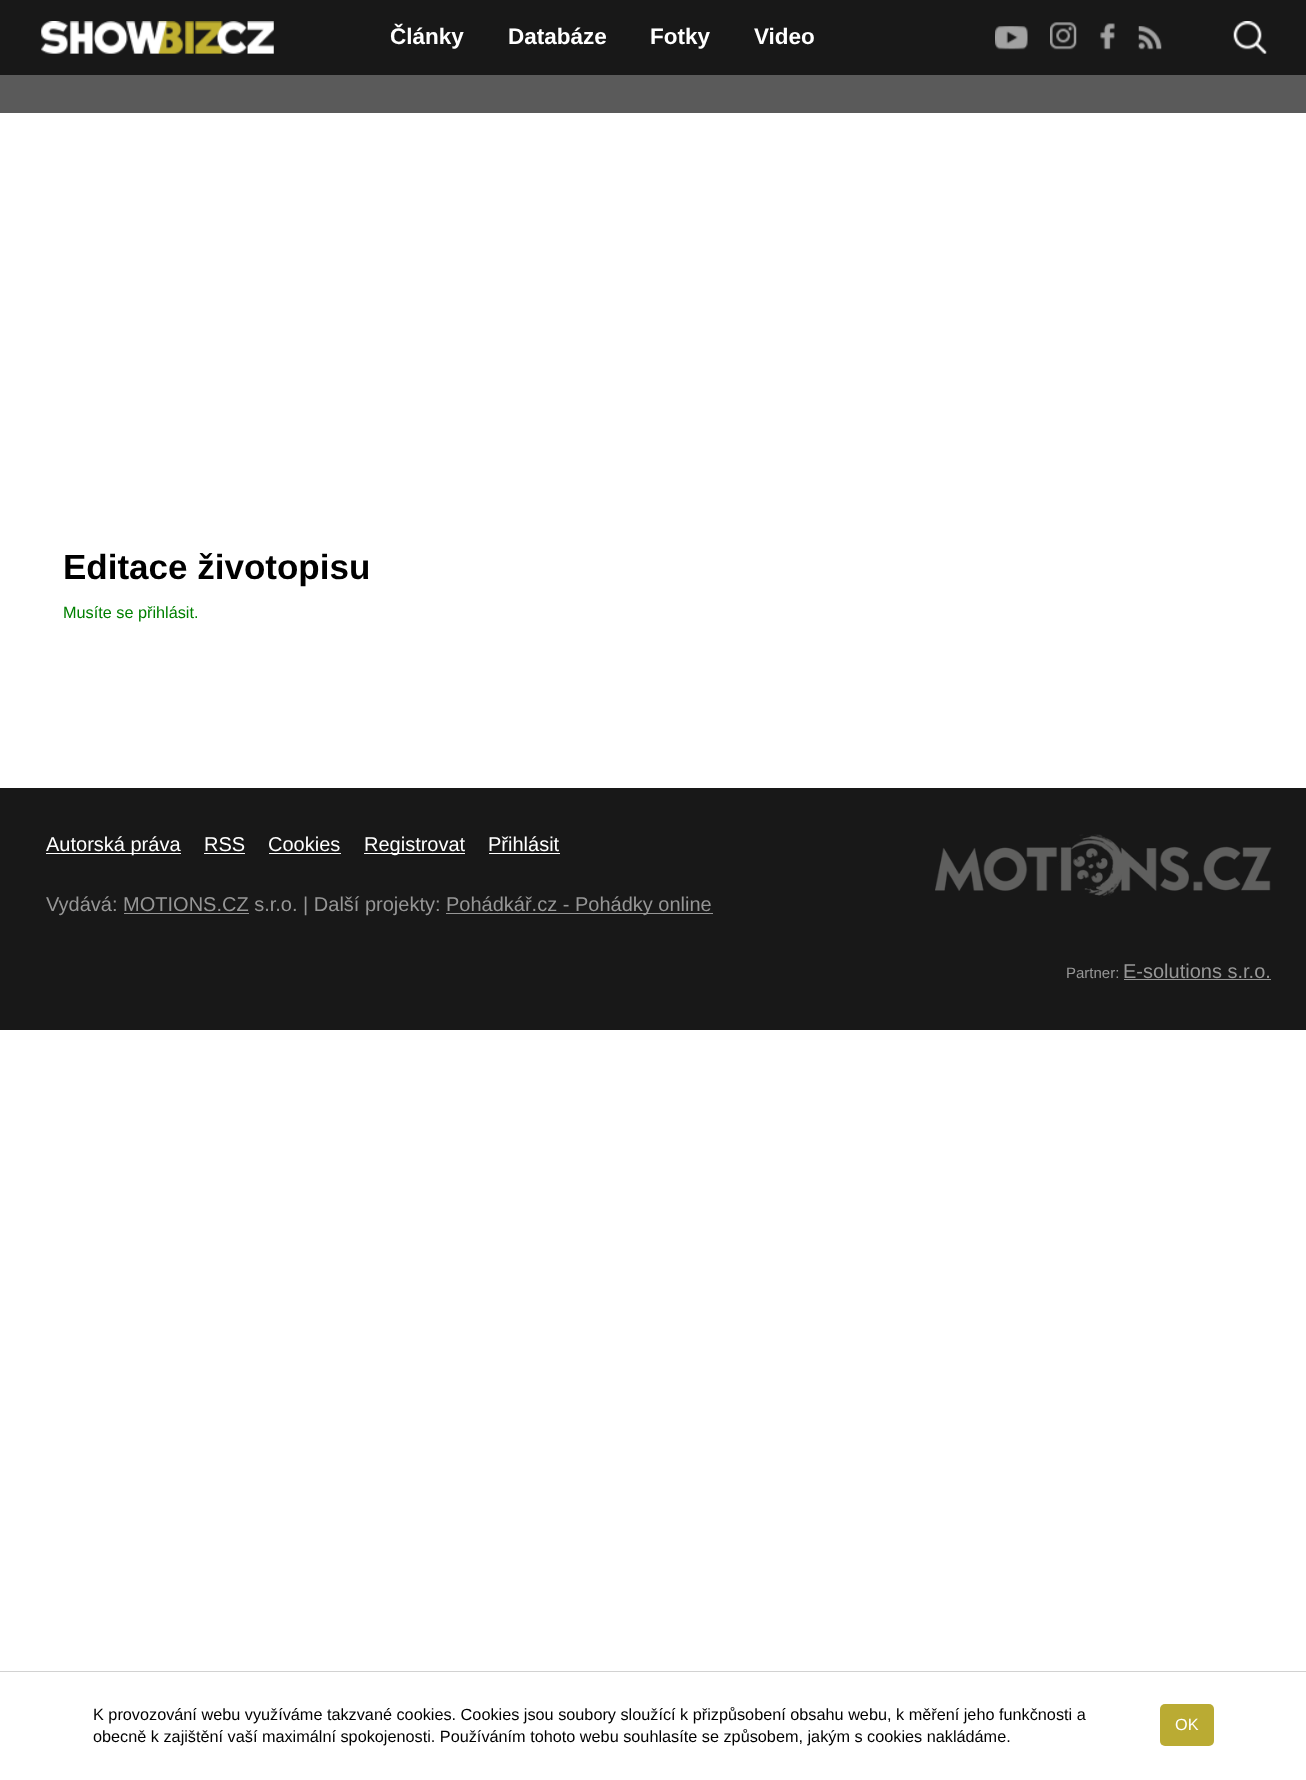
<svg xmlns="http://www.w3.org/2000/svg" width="1306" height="1780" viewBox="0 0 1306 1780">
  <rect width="100%" height="100%" fill="rgb(255,255,255)"/>
  <rect x="0" y="0" width="1306" height="75" fill="rgb(24,24,24)"/>
  <image x="41" y="21" width="233" height="33" href="pic1.png"/>
  <g font-family="Liberation Sans" font-size="22.5" font-weight="bold" fill="rgb(255,255,255)">
    <text x="390" y="44">Články</text>
    <text x="508" y="44">Databáze</text>
    <text x="650" y="44">Fotky</text>
    <text x="754" y="44">Video</text>
  </g>
  <image x="995" y="26" width="33" height="24" href="pic2.png"/>
  <image x="1050" y="22" width="27" height="28" href="pic3.png"/>
  <image x="1100" y="23" width="15" height="27" href="pic4.png"/>
  <image x="1138" y="26" width="24" height="24" href="pic5.png"/>
  <image x="1233" y="21" width="34" height="33" href="pic6.png"/>
  <rect x="0" y="75" width="1306" height="38" fill="rgb(90,90,90)"/>
  <text x="63" y="579" font-family="Liberation Sans" font-size="35" font-weight="bold" fill="rgb(0,0,0)">Editace životopisu</text>
  <text x="63" y="618" font-family="Liberation Sans" font-size="16.25" fill="rgb(0,128,0)">Musíte se přihlásit.</text>
  <rect x="0" y="788" width="1306" height="242" fill="rgb(24,24,24)"/>
  <rect x="46" y="853" width="135" height="1" fill="rgb(255,255,255)"/>
  <g font-family="Liberation Sans" font-size="20" fill="rgb(255,255,255)">
    <text x="46" y="851">Autorská práva</text>
    <text x="204" y="851">RSS</text>
  </g>
  <rect x="204" y="853" width="41" height="1" fill="rgb(255,255,255)"/>
  <text x="268" y="851" font-family="Liberation Sans" font-size="20" fill="rgb(255,255,255)">Cookies</text>
  <rect x="269" y="853" width="72" height="1" fill="rgb(255,255,255)"/>
  <rect x="364" y="853" width="101" height="1" fill="rgb(255,255,255)"/>
  <g font-family="Liberation Sans" font-size="20" fill="rgb(255,255,255)">
    <text x="364" y="851">Registrovat</text>
    <text x="488" y="851">Přihlásit</text>
  </g>
  <rect x="489" y="853" width="71" height="1" fill="rgb(255,255,255)"/>
  <text x="46" y="911" font-family="Liberation Sans" font-size="20" fill="rgb(150,150,150)">Vydává: MOTIONS.CZ s.r.o. | Další projekty:</text>
  <rect x="124" y="913" width="125" height="1" fill="rgb(150,150,150)"/>
  <rect x="446" y="913" width="267" height="1" fill="rgb(150,150,150)"/>
  <text x="446" y="911" font-family="Liberation Sans" font-size="20" fill="rgb(150,150,150)">Pohádkář.cz - Pohádky online</text>
  <image x="935" y="834" width="337" height="64" href="pic7.png"/>
  <text x="1066" y="978" font-family="Liberation Sans" font-size="15" fill="rgb(150,150,150)">Partner:</text>
  <text x="1123" y="978" font-family="Liberation Sans" font-size="20" fill="rgb(150,150,150)">E-solutions s.r.o.</text>
  <rect x="1124" y="979" width="147" height="1" fill="rgb(150,150,150)"/>
  <rect x="0" y="1671" width="1306" height="1" fill="rgb(210,210,210)"/>
  <text x="93" y="1720" font-family="Liberation Sans" font-size="16.25" fill="rgb(0,0,0)">K provozování webu využíváme takzvané cookies. Cookies jsou soubory sloužící k přizpůsobení obsahu webu, k měření jeho funkčnosti a</text>
  <rect x="1160" y="1704" width="54" height="42" rx="5" fill="rgb(186,171,51)"/>
  <text x="1175" y="1730" font-family="Liberation Sans" font-size="16.25" fill="rgb(255,255,255)">OK</text>
  <text x="93" y="1742" font-family="Liberation Sans" font-size="16.25" fill="rgb(0,0,0)">obecně k zajištění vaší maximální spokojenosti. Používáním tohoto webu souhlasíte se způsobem, jakým s cookies nakládáme.</text>
</svg>
